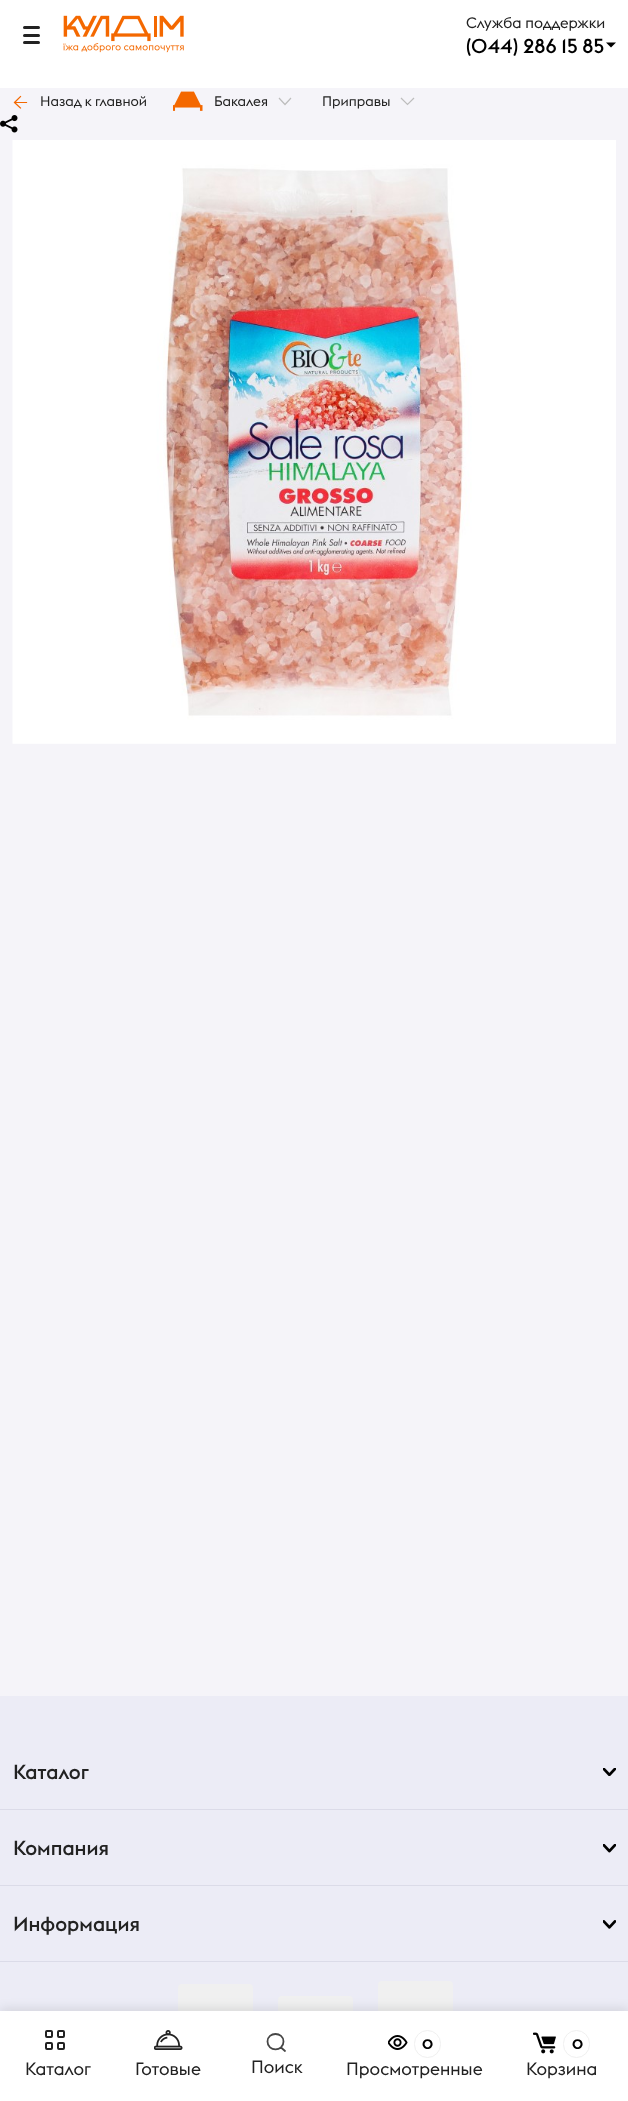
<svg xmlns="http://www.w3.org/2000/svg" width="628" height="2101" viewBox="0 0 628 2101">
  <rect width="100%" height="100%" fill="rgb(255,255,255)"/>
  <rect x="23" y="34" width="17" height="3" rx="1.5" fill="rgb(34,34,34)"/>
  <rect x="23" y="26" width="17" height="3" rx="1.5" fill="rgb(34,34,34)"/>
  <rect x="23" y="41" width="17" height="3" rx="1.5" fill="rgb(34,34,34)"/>
  <image x="63" y="15" width="121" height="38" href="pic1.png"/>
  <text x="466" y="28" font-family="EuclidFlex" font-size="15" fill="rgb(34,34,34)">Служба поддержки</text>
  <text x="466" y="53" font-family="EuclidFlex" font-size="20" font-weight="500" fill="rgb(0,0,0)">(044) 286 15 85</text>
  <path d="M606 42.5H616L611 47.5Z" fill="rgb(0,0,0)"/>
  <rect x="0" y="1696" width="628" height="315" fill="rgb(236,236,246)"/>
  <rect x="178" y="1984" width="75" height="95" rx="4" fill="rgb(240,240,240)"/>
  <rect x="278" y="1996" width="75" height="70" rx="4" fill="rgb(240,240,240)"/>
  <rect x="378" y="1981" width="75" height="100" rx="4" fill="rgb(240,240,240)"/>
  <rect x="0" y="2009" width="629" height="90" fill="rgba(0,0,0,0.11)" filter="blur(5.5px)"/>
  <rect x="0" y="2011" width="628" height="90" fill="rgb(255,255,255)"/>
  <rect x="46" y="2031" width="6" height="6" rx="1" fill="none" stroke="rgb(34,34,34)" stroke-width="2"/>
  <rect x="58" y="2031" width="6" height="6" rx="1" fill="none" stroke="rgb(34,34,34)" stroke-width="2"/>
  <rect x="46" y="2043" width="6" height="6" rx="1" fill="none" stroke="rgb(34,34,34)" stroke-width="2"/>
  <rect x="58" y="2043" width="6" height="6" rx="1" fill="none" stroke="rgb(34,34,34)" stroke-width="2"/>
  <text x="25" y="2075" font-family="EuclidFlex" font-size="17.5" fill="rgb(34,34,34)">Каталог</text>
  <image x="154" y="2030" width="29" height="20" href="pic2.png"/>
  <text x="135" y="2075" font-family="EuclidFlex" font-size="17.5" fill="rgb(34,34,34)">Готовые</text>
  <path d="M281 2047.5L285 2051M283.5 2041.5C283.5 2052 267.5 2052 267.5 2041.5C267.5 2031.5 283.5 2031.5 283.5 2041.5Z" fill="none" stroke="rgb(70,70,70)" stroke-width="1.8" stroke-linecap="round"/>
  <text x="251" y="2073" font-family="EuclidFlex" font-size="17.5" fill="rgb(34,34,34)">Поиск</text>
  <image x="388" y="2035" width="20" height="15" href="pic3.png"/>
  <rect x="414.5" y="2030.5" width="26" height="27" rx="13" fill="none" stroke="rgb(240,240,240)"/>
  <text x="422" y="2049" font-family="EuclidFlex" font-size="13.75" font-weight="bold" letter-spacing="-1" fill="rgb(0,0,0)">0</text>
  <text x="346" y="2075" font-family="EuclidFlex" font-size="17.5" fill="rgb(34,34,34)">Просмотренные</text>
  <image x="533" y="2032" width="23" height="22" href="pic4.png"/>
  <rect x="563.5" y="2030.5" width="26" height="27" rx="13" fill="none" stroke="rgb(240,240,240)"/>
  <text x="572" y="2049" font-family="EuclidFlex" font-size="13.75" font-weight="bold" letter-spacing="-1" fill="rgb(0,0,0)">0</text>
  <text x="526" y="2075" font-family="EuclidFlex" font-size="17.5" fill="rgb(34,34,34)">Корзина</text>
  <rect x="0" y="88" width="628" height="1608" fill="rgb(245,244,249)"/>
  <path d="M20.5 108L14.5 102.5M20.5 96.5L14.5 102.5M14.5 102.5H26.5" fill="none" stroke="rgb(244,104,0)" stroke-width="1.2" stroke-linecap="square"/>
  <text x="40" y="106" font-family="EuclidFlex" font-size="13.75" fill="rgb(34,34,34)">Назад к главной</text>
  <image x="173" y="91" width="30" height="20" href="pic5.png"/>
  <text x="214" y="106" font-family="EuclidFlex" font-size="13.75" fill="rgb(34,34,34)">Бакалея</text>
  <path d="M279 98L285 104.5L291 98" fill="none" stroke="rgb(189,189,189)" stroke-width="1.2"/>
  <text x="322" y="106" font-family="EuclidFlex" font-size="13.75" fill="rgb(34,34,34)">Приправы</text>
  <path d="M401 98L407.5 104.5L414 98" fill="none" stroke="rgb(189,189,189)" stroke-width="1.2"/>
  <image x="0" y="115" width="18" height="18" href="pic6.png"/>
  <image x="12" y="140" width="604" height="604" href="pic7.png"/>
  <rect x="0" y="1809" width="628" height="1" fill="rgb(219,219,232)"/>
  <text x="13" y="1779" font-family="EuclidFlex" font-size="20" font-weight="500" fill="rgb(34,34,34)">Каталог</text>
  <image x="603" y="1768" width="13" height="8" href="pic8.png"/>
  <rect x="0" y="1885" width="628" height="1" fill="rgb(219,219,232)"/>
  <text x="13" y="1855" font-family="EuclidFlex" font-size="20" font-weight="500" fill="rgb(34,34,34)">Компания</text>
  <image x="603" y="1844" width="13" height="9" href="pic9.png"/>
  <rect x="0" y="1961" width="628" height="1" fill="rgb(219,219,232)"/>
  <text x="13" y="1931" font-family="EuclidFlex" font-size="20" font-weight="500" fill="rgb(34,34,34)">Информация</text>
  <image x="603" y="1920" width="13" height="9" href="pic10.png"/>
</svg>
